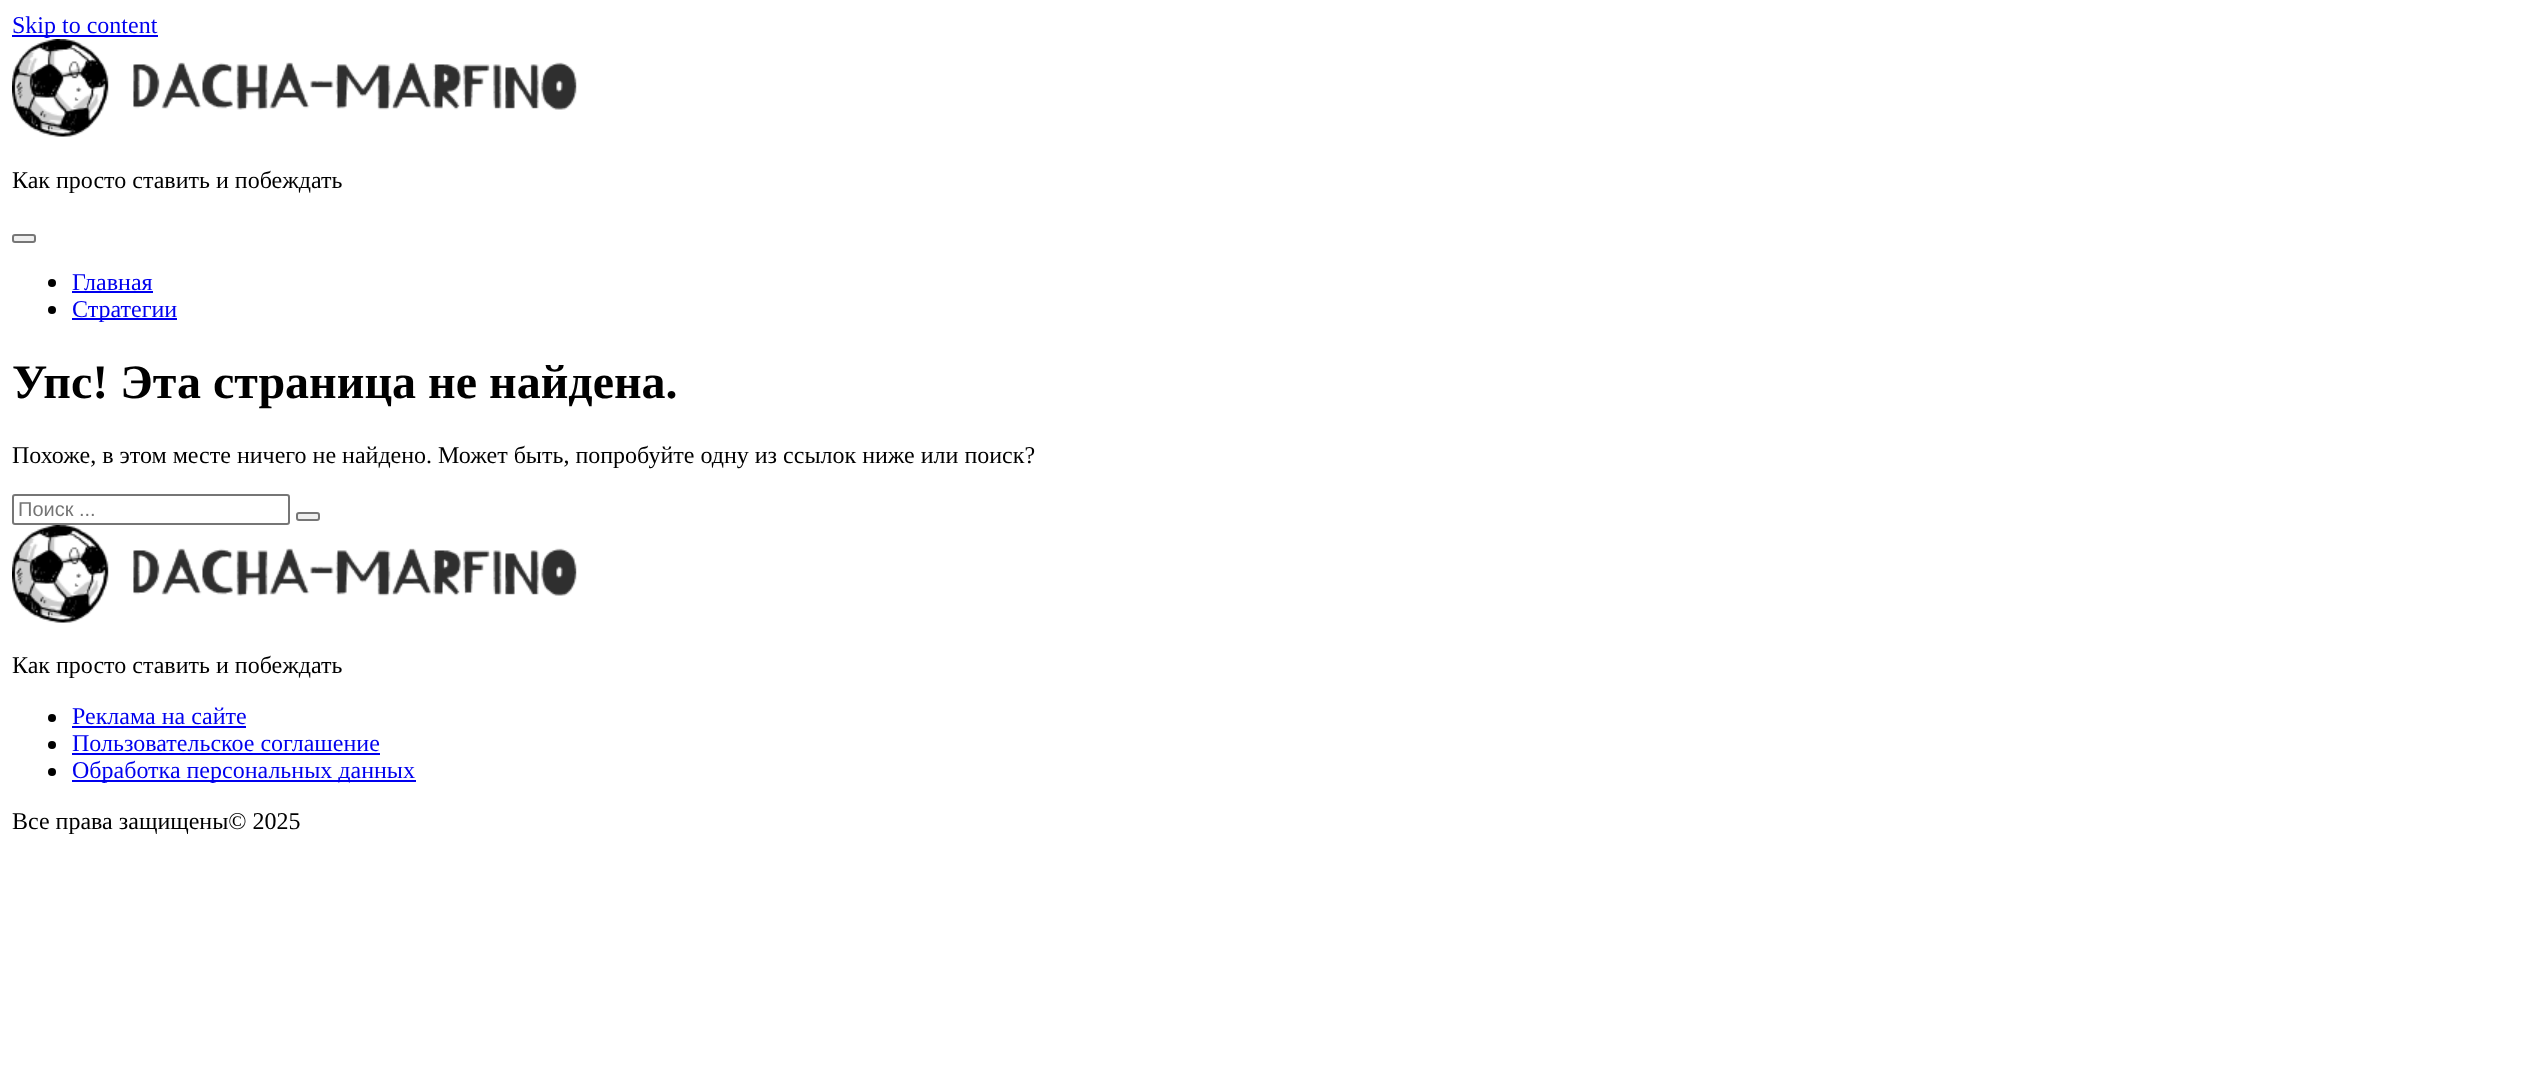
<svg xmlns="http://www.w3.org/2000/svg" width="2545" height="1066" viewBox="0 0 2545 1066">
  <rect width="100%" height="100%" fill="rgb(255,255,255)"/>
  <rect x="12" y="35" width="146" height="2" fill="rgb(0,0,238)"/>
  <text x="12" y="33" font-family="Liberation Serif" font-size="24" fill="rgb(0,0,238)">Skip to content</text>
  <image x="12" y="39" width="565" height="98" href="pic1.png"/>
  <text x="12" y="188" font-family="Liberation Serif" font-size="24" fill="rgb(0,0,0)">Как просто ставить и побеждать</text>
  <rect x="13" y="235" width="22" height="7" rx="2" fill="rgb(239,239,239)" stroke="rgb(118,118,118)" stroke-width="2"/>
  <circle cx="52" cy="283" r="4" fill="rgb(0,0,0)"/>
  <text x="72" y="290" font-family="Liberation Serif" font-size="24" fill="rgb(0,0,238)">Главная</text>
  <rect x="72" y="291" width="81" height="2" fill="rgb(0,0,238)"/>
  <circle cx="52" cy="310" r="4" fill="rgb(0,0,0)"/>
  <rect x="72" y="318" width="105" height="2" fill="rgb(0,0,238)"/>
  <text x="72" y="317" font-family="Liberation Serif" font-size="24" fill="rgb(0,0,238)">Стратегии</text>
  <text x="12" y="398" font-family="Liberation Serif" font-size="48" font-weight="bold" fill="rgb(0,0,0)">Упс! Эта страница не найдена.</text>
  <text x="12" y="463" font-family="Liberation Serif" font-size="24" fill="rgb(0,0,0)">Похоже, в этом месте ничего не найдено. Может быть, попробуйте одну из ссылок ниже или поиск?</text>
  <rect x="13" y="495" width="276" height="29" rx="2" fill="none" stroke="rgb(118,118,118)" stroke-width="2"/>
  <text x="18" y="516" font-family="Liberation Sans" font-size="20" fill="rgb(117,117,117)">Поиск ...</text>
  <rect x="297" y="513" width="22" height="7" rx="2" fill="rgb(239,239,239)" stroke="rgb(118,118,118)" stroke-width="2"/>
  <image x="12" y="525" width="565" height="98" href="pic1.png"/>
  <text x="12" y="673" font-family="Liberation Serif" font-size="24" fill="rgb(0,0,0)">Как просто ставить и побеждать</text>
  <circle cx="52" cy="718" r="4" fill="rgb(0,0,0)"/>
  <text x="72" y="724" font-family="Liberation Serif" font-size="24" fill="rgb(0,0,238)">Реклама на сайте</text>
  <rect x="72" y="726" width="174" height="2" fill="rgb(0,0,238)"/>
  <circle cx="52" cy="745" r="4" fill="rgb(0,0,0)"/>
  <text x="72" y="751" font-family="Liberation Serif" font-size="24" fill="rgb(0,0,238)">Пользовательское соглашение</text>
  <rect x="72" y="753" width="308" height="2" fill="rgb(0,0,238)"/>
  <circle cx="52" cy="772" r="4" fill="rgb(0,0,0)"/>
  <rect x="72" y="780" width="344" height="2" fill="rgb(0,0,238)"/>
  <text x="72" y="778" font-family="Liberation Serif" font-size="24" fill="rgb(0,0,238)">Обработка персональных данных</text>
  <text x="12" y="829" font-family="Liberation Serif" font-size="24" fill="rgb(0,0,0)">Все права защищены© 2025</text>
</svg>
